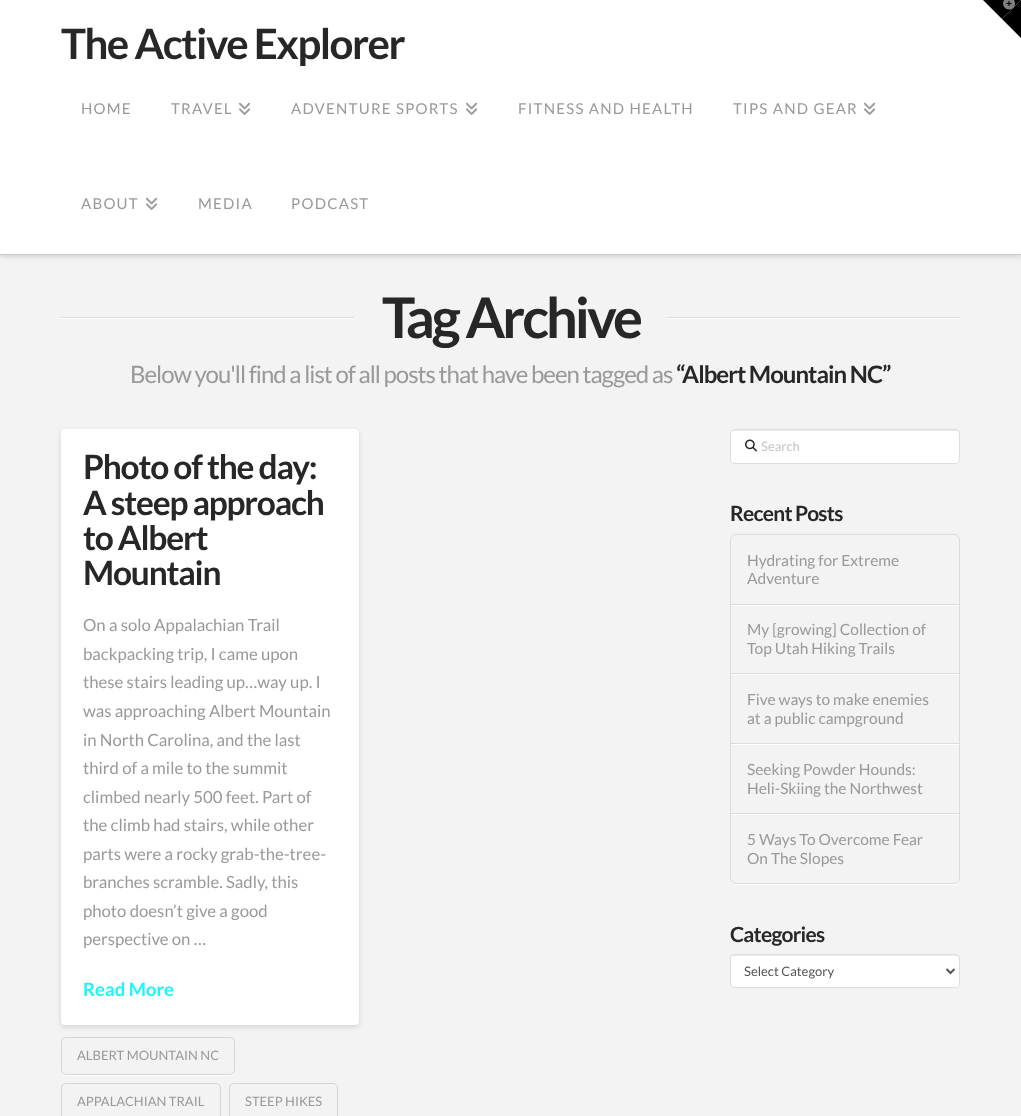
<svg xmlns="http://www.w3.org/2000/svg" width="1021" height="1116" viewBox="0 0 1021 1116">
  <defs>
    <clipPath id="clip1"><path d="M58 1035H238V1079H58ZM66 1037H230C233 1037 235 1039 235 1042V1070C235 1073 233 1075 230 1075H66C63 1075 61 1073 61 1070V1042C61 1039 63 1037 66 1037Z" clip-rule="evenodd"/></clipPath>
    <clipPath id="clip2"><path d="M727 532H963V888H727ZM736 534H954C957.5 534 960 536.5 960 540V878C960 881.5 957.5 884 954 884H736C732.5 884 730 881.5 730 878V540C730 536.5 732.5 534 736 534Z" clip-rule="evenodd"/></clipPath>
    <clipPath id="clip3"><rect x="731" y="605" width="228" height="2"/></clipPath>
    <clipPath id="clip4"><rect x="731" y="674" width="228" height="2"/></clipPath>
    <clipPath id="clip5"><rect x="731" y="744" width="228" height="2"/></clipPath>
    <clipPath id="clip6"><rect x="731" y="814" width="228" height="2"/></clipPath>
  </defs>
  <rect width="100%" height="100%" fill="rgb(243,243,243)"/>
  <rect x="0" y="2" width="1021" height="255" fill="rgba(0,0,0,0.13)" filter="blur(2.5px)"/>
  <rect x="0" y="0" width="1021" height="254" fill="rgb(255,255,255)"/>
  <path d="M983 0H1021L1002 19Z" fill="rgb(0,0,0)"/>
  <path d="M1021 0V38L1002 19Z" fill="rgb(0,0,0)"/>
  <image x="1003" y="0" width="12" height="10" href="pic1.png"/>
  <rect x="0" y="254" width="1021" height="1" fill="rgb(204,204,204)"/>
  <text x="61" y="59" font-family="Lato" font-size="42" font-weight="bold" letter-spacing="-1.5" fill="rgb(39,39,39)">The Active Explorer</text>
  <g font-family="Lato" font-size="15" letter-spacing="1.25" fill="rgb(153,153,153)">
    <text x="81" y="114">HOME</text>
    <text x="171" y="114">TRAVEL</text>
  </g>
  <image x="239" y="102" width="12" height="13" href="pic2.png"/>
  <text x="291" y="114" font-family="Lato" font-size="15" letter-spacing="1.25" fill="rgb(153,153,153)">ADVENTURE SPORTS</text>
  <image x="466" y="102" width="12" height="13" href="pic2.png"/>
  <g font-family="Lato" font-size="15" letter-spacing="1.25" fill="rgb(153,153,153)">
    <text x="518" y="114">FITNESS AND HEALTH</text>
    <text x="733" y="114">TIPS AND GEAR</text>
  </g>
  <image x="864" y="102" width="12" height="13" href="pic2.png"/>
  <text x="81" y="209" font-family="Lato" font-size="15" letter-spacing="1.25" fill="rgb(153,153,153)">ABOUT</text>
  <image x="146" y="197" width="12" height="13" href="pic2.png"/>
  <g font-family="Lato" font-size="15" letter-spacing="1.25" fill="rgb(153,153,153)">
    <text x="198" y="209">MEDIA</text>
    <text x="291" y="209">PODCAST</text>
  </g>
  <rect x="61" y="318" width="293" height="1" fill="rgb(253,253,253)"/>
  <rect x="61" y="317" width="293" height="1" fill="rgb(219,219,219)"/>
  <text x="382" y="338" font-family="Lato" font-size="56" font-weight="bold" letter-spacing="-3" fill="rgb(39,39,39)">Tag Archive</text>
  <rect x="667" y="318" width="293" height="1" fill="rgb(253,253,253)"/>
  <rect x="667" y="317" width="293" height="1" fill="rgb(219,219,219)"/>
  <text x="130" y="383" font-family="Lato" font-size="24" letter-spacing="-1" fill="rgb(153,153,153)">Below you'll find a list of all posts that have been tagged as</text>
  <text x="676" y="383" font-family="Lato" font-size="24" font-weight="bold" letter-spacing="-1" fill="rgb(39,39,39)">“Albert Mountain NC”</text>
  <rect x="61" y="431" width="298" height="596" rx="4" fill="rgba(0,0,0,0.13)" filter="blur(2.5px)"/>
  <rect x="61" y="429" width="298" height="596" rx="4" fill="rgb(255,255,255)"/>
  <g font-family="Lato" font-size="33.5" font-weight="bold" letter-spacing="-1.2" fill="rgb(39,39,39)">
    <text>
      <tspan x="83" y="479">Photo of the day:</tspan>
      <tspan x="83" y="515">A steep approach</tspan>
      <tspan x="83" y="550">to Albert</tspan>
      <tspan x="83" y="585">Mountain</tspan>
    </text>
  </g>
  <g font-family="Lato" font-size="16.75" fill="rgb(153,153,153)">
    <text>
      <tspan x="83" y="631">On a solo Appalachian Trail</tspan>
      <tspan x="83" y="660">backpacking trip, I came upon</tspan>
      <tspan x="83" y="688">these stairs leading up…way up. I</tspan>
      <tspan x="83" y="717">was approaching Albert Mountain</tspan>
      <tspan x="83" y="746">in North Carolina, and the last</tspan>
      <tspan x="83" y="774">third of a mile to the summit</tspan>
      <tspan x="83" y="803">climbed nearly 500 feet. Part of</tspan>
      <tspan x="83" y="831">the climb had stairs, while other</tspan>
      <tspan x="83" y="860">parts were a rocky grab-the-tree-</tspan>
      <tspan x="83" y="888">branches scramble. Sadly, this</tspan>
      <tspan x="83" y="917">photo doesn’t give a good</tspan>
      <tspan x="83" y="945">perspective on …</tspan>
    </text>
  </g>
  <text x="83" y="996" font-family="Lato" font-size="18.5" font-weight="bold" fill="rgb(30,245,250)">Read More</text>
  <g clip-path="url(#clip1)">
    <rect x="61" y="1038" width="174" height="38" rx="5" fill="rgba(255,255,255,0.95)" filter="blur(0.5px)"/>
  </g>
  <rect x="61.5" y="1037.5" width="173" height="37" rx="4.5" fill="none" stroke="rgba(0,0,0,0.12)"/>
  <text x="77" y="1060" font-family="Lato" font-size="13" fill="rgb(153,153,153)">ALBERT MOUNTAIN NC</text>
  <rect x="61.5" y="1083.5" width="159" height="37" rx="4.5" fill="none" stroke="rgb(213,213,213)"/>
  <text x="77" y="1106" font-family="Lato" font-size="13" fill="rgb(153,153,153)">APPALACHIAN TRAIL</text>
  <rect x="229.5" y="1083.5" width="108" height="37" rx="4.5" fill="none" stroke="rgb(213,213,213)"/>
  <text x="245" y="1106" font-family="Lato" font-size="13" fill="rgb(153,153,153)">STEEP HIKES</text>
  <rect x="730" y="429" width="230" height="35" rx="4" fill="rgb(255,255,255)"/>
  <path d="M734 431H956C958 431 959 432 959 434V433C959 431 958 430 956 430H734C732 430 731 431 731 433V434C731 432 732 431 734 431Z" fill="rgb(236,236,236)"/>
  <rect x="730.5" y="429.5" width="229" height="34" rx="3.5" fill="none" stroke="rgb(221,221,221)"/>
  <image x="745" y="439" width="12" height="13" href="pic3.png"/>
  <text x="761" y="451" font-family="Lato" font-size="13" fill="rgb(197,197,197)">Search</text>
  <text x="730" y="521" font-family="Lato" font-size="21" font-weight="bold" letter-spacing="-0.75" fill="rgb(39,39,39)">Recent Posts</text>
  <g clip-path="url(#clip2)">
    <rect x="730" y="535" width="230" height="350" rx="6" fill="rgba(255,255,255,0.95)" filter="blur(0.5px)"/>
  </g>
  <rect x="730.5" y="534.5" width="229" height="349" rx="5.5" fill="none" stroke="rgb(219,219,219)"/>
  <g clip-path="url(#clip3)">
    <rect x="731" y="536" width="228" height="70" fill="rgba(255,255,255,0.95)" filter="blur(0.5px)"/>
  </g>
  <rect x="731" y="604" width="228" height="1" fill="rgb(219,219,219)"/>
  <g font-family="Lato" font-size="15.5" fill="rgb(153,153,153)">
    <text>
      <tspan x="747" y="566">Hydrating for Extreme</tspan>
      <tspan x="747" y="584">Adventure</tspan>
    </text>
  </g>
  <g clip-path="url(#clip4)">
    <rect x="731" y="606" width="228" height="69" fill="rgba(255,255,255,0.95)" filter="blur(0.5px)"/>
  </g>
  <rect x="731" y="673" width="228" height="1" fill="rgb(219,219,219)"/>
  <g font-family="Lato" font-size="15.5" fill="rgb(153,153,153)">
    <text>
      <tspan x="747" y="635">My [growing] Collection of</tspan>
      <tspan x="747" y="654">Top Utah Hiking Trails</tspan>
    </text>
  </g>
  <g clip-path="url(#clip5)">
    <rect x="731" y="675" width="228" height="70" fill="rgba(255,255,255,0.95)" filter="blur(0.5px)"/>
  </g>
  <rect x="731" y="743" width="228" height="1" fill="rgb(219,219,219)"/>
  <g font-family="Lato" font-size="15.5" fill="rgb(153,153,153)">
    <text>
      <tspan x="747" y="705">Five ways to make enemies</tspan>
      <tspan x="747" y="724">at a public campground</tspan>
    </text>
  </g>
  <g clip-path="url(#clip6)">
    <rect x="731" y="745" width="228" height="70" fill="rgba(255,255,255,0.95)" filter="blur(0.5px)"/>
  </g>
  <rect x="731" y="813" width="228" height="1" fill="rgb(219,219,219)"/>
  <g font-family="Lato" font-size="15.5" fill="rgb(153,153,153)">
    <text>
      <tspan x="747" y="775">Seeking Powder Hounds:</tspan>
      <tspan x="747" y="794">Heli-Skiing the Northwest</tspan>
    </text>
    <text>
      <tspan x="747" y="845">5 Ways To Overcome Fear</tspan>
      <tspan x="747" y="864">On The Slopes</tspan>
    </text>
  </g>
  <text x="730" y="942" font-family="Lato" font-size="21" font-weight="bold" letter-spacing="-0.75" fill="rgb(39,39,39)">Categories</text>
  <rect x="730" y="954" width="230" height="34" rx="4" fill="rgb(255,255,255)"/>
  <path d="M734 956H956C958 956 959 957 959 959V958C959 956 958 955 956 955H734C732 955 731 956 731 958V959C731 957 732 956 734 956Z" fill="rgb(236,236,236)"/>
  <rect x="730.5" y="954.5" width="229" height="33" rx="3.5" fill="none" stroke="rgb(221,221,221)"/>
  <path d="M946.5 969L950.5 973L954.5 969" fill="none" stroke="rgb(85,85,85)" stroke-width="2"/>
  <text x="744" y="976" font-family="Lato" font-size="13" fill="rgb(85,85,85)">Select Category</text>
</svg>
